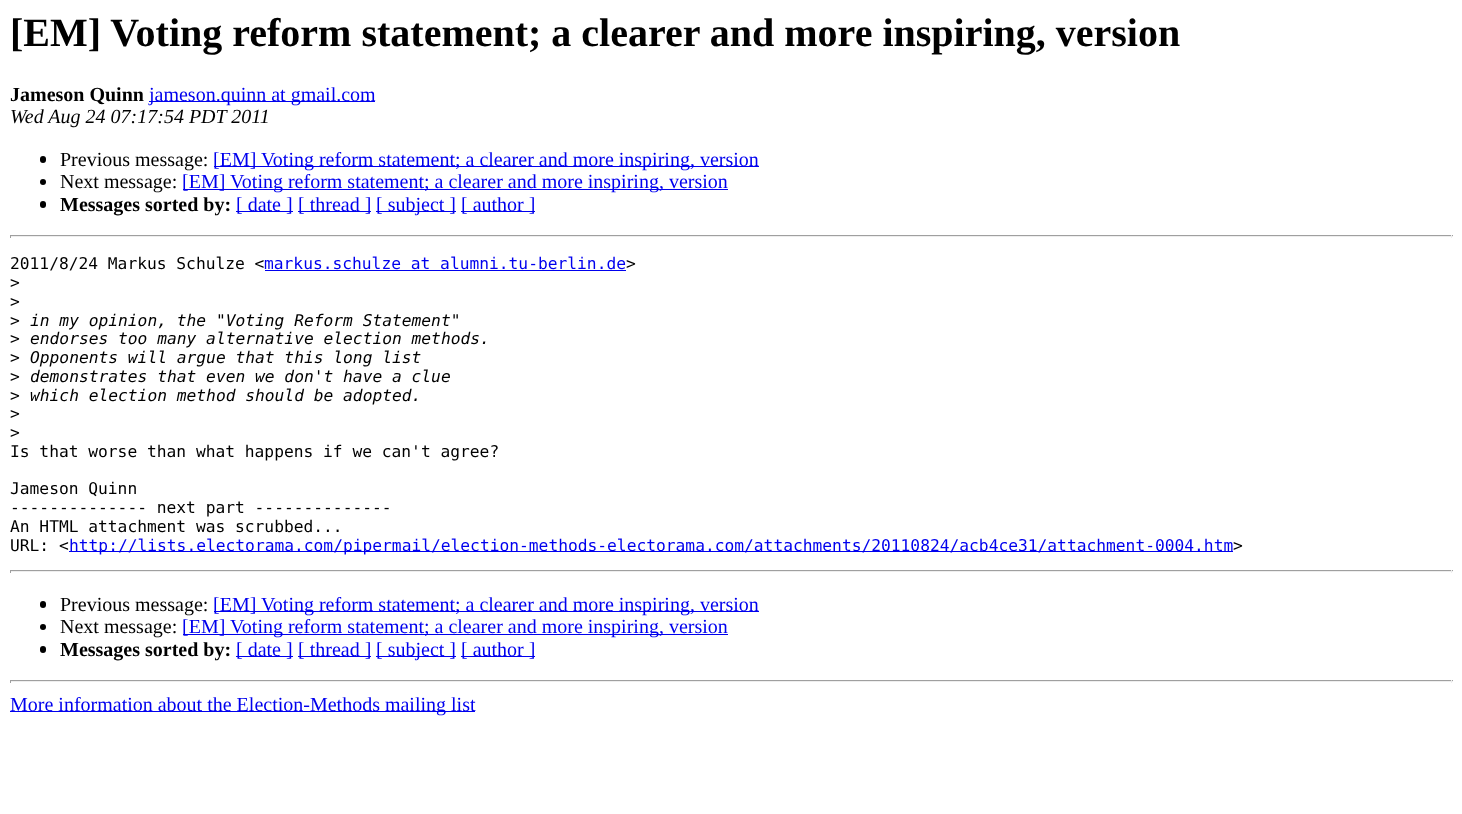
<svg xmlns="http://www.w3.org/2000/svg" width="1462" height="814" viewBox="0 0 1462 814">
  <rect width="100%" height="100%" fill="rgb(255,255,255)"/>
  <text x="10" y="46" font-family="Liberation Serif" font-size="40" font-weight="bold" fill="rgb(0,0,0)">[EM] Voting reform statement; a clearer and more inspiring, version</text>
  <text x="10" y="101" font-family="Liberation Serif" font-size="20" font-weight="bold" fill="rgb(0,0,0)">Jameson Quinn</text>
  <rect x="149" y="101" width="226" height="1" fill="rgb(0,0,238)"/>
  <text x="149" y="101" font-family="Liberation Serif" font-size="20" fill="rgb(0,0,238)">jameson.quinn at gmail.com</text>
  <text x="10" y="123" font-family="Liberation Serif" font-size="20" font-style="italic" fill="rgb(0,0,0)">Wed Aug 24 07:17:54 PDT 2011</text>
  <rect x="40" y="156" width="6" height="7" rx="3" fill="rgb(0,0,0)"/>
  <text x="60" y="166" font-family="Liberation Serif" font-size="20" fill="rgb(0,0,0)">Previous message:</text>
  <rect x="214" y="166" width="545" height="1" fill="rgb(0,0,238)"/>
  <text x="213" y="166" font-family="Liberation Serif" font-size="20" fill="rgb(0,0,238)">[EM] Voting reform statement; a clearer and more inspiring, version</text>
  <circle cx="43" cy="182" r="3" fill="rgb(0,0,0)"/>
  <text x="60" y="188" font-family="Liberation Serif" font-size="20" fill="rgb(0,0,0)">Next message:</text>
  <rect x="183" y="189" width="545" height="1" fill="rgb(0,0,238)"/>
  <text x="182" y="188" font-family="Liberation Serif" font-size="20" fill="rgb(0,0,238)">[EM] Voting reform statement; a clearer and more inspiring, version</text>
  <rect x="40" y="201" width="6" height="7" rx="3" fill="rgb(0,0,0)"/>
  <text x="60" y="211" font-family="Liberation Serif" font-size="20" font-weight="bold" fill="rgb(0,0,0)">Messages sorted by:</text>
  <rect x="236" y="211" width="57" height="1" fill="rgb(0,0,238)"/>
  <text x="236" y="211" font-family="Liberation Serif" font-size="20" fill="rgb(0,0,238)">[ date ]</text>
  <rect x="298" y="211" width="73" height="1" fill="rgb(0,0,238)"/>
  <text x="298" y="211" font-family="Liberation Serif" font-size="20" fill="rgb(0,0,238)">[ thread ]</text>
  <rect x="376" y="211" width="80" height="1" fill="rgb(0,0,238)"/>
  <text x="376" y="211" font-family="Liberation Serif" font-size="20" fill="rgb(0,0,238)">[ subject ]</text>
  <rect x="461" y="211" width="74" height="1" fill="rgb(0,0,238)"/>
  <text x="461" y="211" font-family="Liberation Serif" font-size="20" fill="rgb(0,0,238)">[ author ]</text>
  <rect x="10" y="235" width="1443" height="1" fill="rgb(159,159,159)"/>
  <rect x="1451" y="235" width="1" height="3" fill="rgb(238,238,238)"/>
  <rect x="10" y="236" width="1443" height="1" fill="rgb(238,238,238)"/>
  <rect x="10" y="235" width="1" height="3" fill="rgb(159,159,159)"/>
  <text x="10" y="269" font-family="DejaVu Sans Mono" font-size="16.25" fill="rgb(0,0,0)">2011/8/24 Markus Schulze &lt;</text>
  <text x="264" y="269" font-family="DejaVu Sans Mono" font-size="16.25" fill="rgb(0,0,238)">markus.schulze at alumni.tu-berlin.de</text>
  <rect x="265" y="270" width="361" height="1" fill="rgb(0,0,238)"/>
  <g font-family="DejaVu Sans Mono" font-size="16.25" fill="rgb(0,0,0)">
    <text x="626" y="269">&gt;</text>
    <text>
      <tspan x="10" y="288">&gt;</tspan>
      <tspan x="10" y="307">&gt;</tspan>
      <tspan x="10" y="326">&gt;</tspan>
    </text>
  </g>
  <text x="30" y="326" font-family="DejaVu Sans Mono" font-size="16.25" font-style="italic" fill="rgb(0,0,0)">in my opinion, the "Voting Reform Statement"</text>
  <text x="10" y="344" font-family="DejaVu Sans Mono" font-size="16.25" fill="rgb(0,0,0)">&gt;</text>
  <text x="30" y="344" font-family="DejaVu Sans Mono" font-size="16.25" font-style="italic" fill="rgb(0,0,0)">endorses too many alternative election methods.</text>
  <text x="10" y="363" font-family="DejaVu Sans Mono" font-size="16.25" fill="rgb(0,0,0)">&gt;</text>
  <text x="30" y="363" font-family="DejaVu Sans Mono" font-size="16.25" font-style="italic" fill="rgb(0,0,0)">Opponents will argue that this long list</text>
  <text x="10" y="382" font-family="DejaVu Sans Mono" font-size="16.25" fill="rgb(0,0,0)">&gt;</text>
  <text x="30" y="382" font-family="DejaVu Sans Mono" font-size="16.25" font-style="italic" fill="rgb(0,0,0)">demonstrates that even we don't have a clue</text>
  <text x="10" y="401" font-family="DejaVu Sans Mono" font-size="16.25" fill="rgb(0,0,0)">&gt;</text>
  <text x="30" y="401" font-family="DejaVu Sans Mono" font-size="16.25" font-style="italic" fill="rgb(0,0,0)">which election method should be adopted.</text>
  <g font-family="DejaVu Sans Mono" font-size="16.25" fill="rgb(0,0,0)">
    <text>
      <tspan x="10" y="419">&gt;</tspan>
      <tspan x="10" y="438">&gt;</tspan>
      <tspan x="10" y="457">Is that worse than what happens if we can't agree?</tspan>
    </text>
    <text>
      <tspan x="10" y="494">Jameson Quinn</tspan>
      <tspan x="10" y="513">-------------- next part --------------</tspan>
      <tspan x="10" y="532">An HTML attachment was scrubbed...</tspan>
      <tspan x="10" y="551">URL: &lt;</tspan>
    </text>
  </g>
  <rect x="69" y="551" width="1164" height="1" fill="rgb(0,0,238)"/>
  <text x="69" y="551" font-family="DejaVu Sans Mono" font-size="16.25" fill="rgb(0,0,238)">http://lists.electorama.com/pipermail/election-methods-electorama.com/attachments/20110824/acb4ce31/attachment-0004.htm</text>
  <text x="1233" y="551" font-family="DejaVu Sans Mono" font-size="16.25" fill="rgb(0,0,0)">&gt;</text>
  <rect x="10" y="570" width="1443" height="1" fill="rgb(159,159,159)"/>
  <rect x="1451" y="570" width="1" height="3" fill="rgb(238,238,238)"/>
  <rect x="10" y="571" width="1443" height="1" fill="rgb(238,238,238)"/>
  <rect x="10" y="570" width="1" height="3" fill="rgb(159,159,159)"/>
  <rect x="40" y="601" width="6" height="7" rx="3" fill="rgb(0,0,0)"/>
  <text x="60" y="611" font-family="Liberation Serif" font-size="20" fill="rgb(0,0,0)">Previous message:</text>
  <rect x="214" y="611" width="545" height="1" fill="rgb(0,0,238)"/>
  <text x="213" y="611" font-family="Liberation Serif" font-size="20" fill="rgb(0,0,238)">[EM] Voting reform statement; a clearer and more inspiring, version</text>
  <circle cx="43" cy="627" r="3" fill="rgb(0,0,0)"/>
  <text x="60" y="633" font-family="Liberation Serif" font-size="20" fill="rgb(0,0,0)">Next message:</text>
  <rect x="183" y="634" width="545" height="1" fill="rgb(0,0,238)"/>
  <text x="182" y="633" font-family="Liberation Serif" font-size="20" fill="rgb(0,0,238)">[EM] Voting reform statement; a clearer and more inspiring, version</text>
  <rect x="40" y="646" width="6" height="7" rx="3" fill="rgb(0,0,0)"/>
  <text x="60" y="656" font-family="Liberation Serif" font-size="20" font-weight="bold" fill="rgb(0,0,0)">Messages sorted by:</text>
  <rect x="236" y="656" width="57" height="1" fill="rgb(0,0,238)"/>
  <text x="236" y="656" font-family="Liberation Serif" font-size="20" fill="rgb(0,0,238)">[ date ]</text>
  <rect x="298" y="656" width="73" height="1" fill="rgb(0,0,238)"/>
  <text x="298" y="656" font-family="Liberation Serif" font-size="20" fill="rgb(0,0,238)">[ thread ]</text>
  <rect x="376" y="656" width="80" height="1" fill="rgb(0,0,238)"/>
  <text x="376" y="656" font-family="Liberation Serif" font-size="20" fill="rgb(0,0,238)">[ subject ]</text>
  <rect x="461" y="656" width="74" height="1" fill="rgb(0,0,238)"/>
  <text x="461" y="656" font-family="Liberation Serif" font-size="20" fill="rgb(0,0,238)">[ author ]</text>
  <rect x="10" y="680" width="1443" height="1" fill="rgb(159,159,159)"/>
  <rect x="1451" y="680" width="1" height="3" fill="rgb(238,238,238)"/>
  <rect x="10" y="681" width="1443" height="1" fill="rgb(238,238,238)"/>
  <rect x="10" y="680" width="1" height="3" fill="rgb(159,159,159)"/>
  <rect x="10" y="711" width="465" height="1" fill="rgb(0,0,238)"/>
  <text x="10" y="711" font-family="Liberation Serif" font-size="20" fill="rgb(0,0,238)">More information about the Election-Methods mailing list</text>
</svg>
